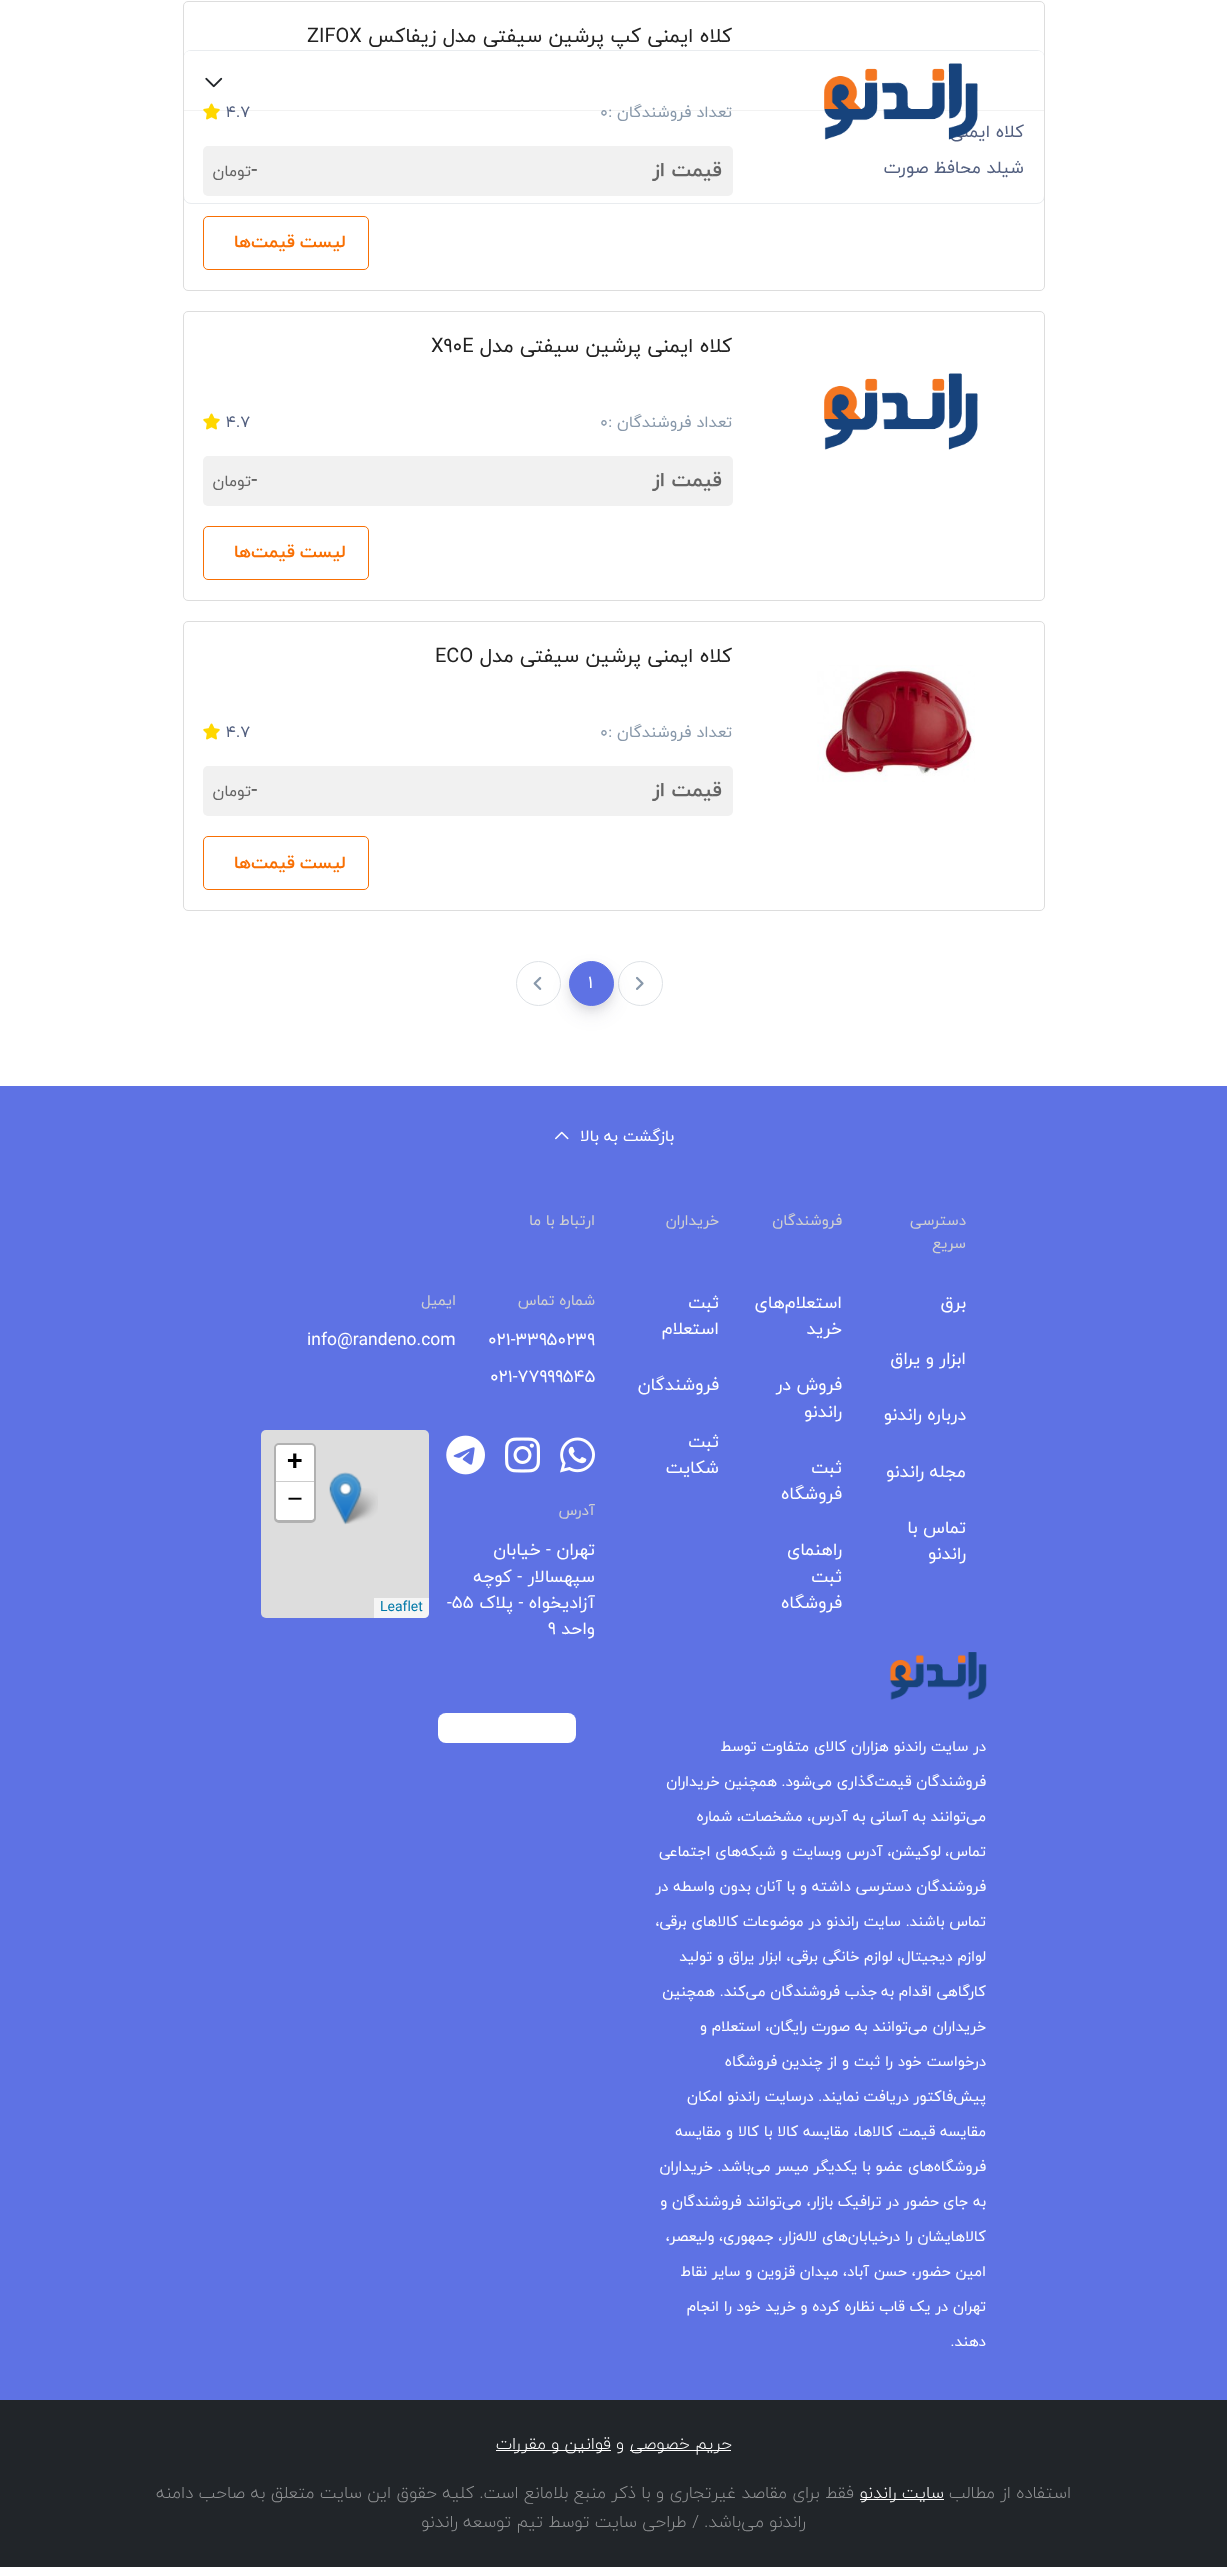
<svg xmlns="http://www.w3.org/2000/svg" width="1227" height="2567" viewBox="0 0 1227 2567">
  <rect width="100%" height="100%" fill="rgb(255,255,255)"/>
  <rect x="183.5" y="50.5" width="861" height="153" rx="7.5" fill="none" stroke="rgb(233,236,239)"/>
  <path d="M190 51H1038C1041.5 51 1044 53.5 1044 57V111H184V57C184 53.5 186.5 51 190 51Z" fill="rgb(255,255,255)"/>
  <rect x="184" y="110" width="860" height="1" fill="rgb(242,242,242)"/>
  <image x="205" y="77" width="18" height="11" href="pic1.png"/>
  <g font-family="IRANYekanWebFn" font-size="17.5" direction="rtl" fill="rgb(82,95,127)">
    <text x="1024" y="137">کلاه ایمنی</text>
    <text x="1024" y="173">شیلد محافظ صورت</text>
  </g>
  <rect x="183.5" y="1.5" width="861" height="289" rx="4.5" fill="none" stroke="rgb(221,221,221)"/>
  <image x="824" y="63" width="154" height="77" href="pic2.png"/>
  <text x="732" y="42" font-family="IRANYekanWebFn" font-size="20" direction="rtl" fill="rgb(34,34,34)">کلاه ایمنی کپ پرشین سیفتی مدل زیفاکس</text>
  <text x="307" y="42" font-family="IRANYekanWebFn" font-size="20" fill="rgb(34,34,34)">ZIFOX</text>
  <text x="732" y="117" font-family="IRANYekanWebFn" font-size="16" direction="rtl" fill="rgb(136,152,170)">تعداد فروشندگان :</text>
  <text x="600" y="117" font-family="IRANYekanWebFn" font-size="16" fill="rgb(136,152,170)">0</text>
  <text x="226" y="117" font-family="IRANYekanWebFn" font-size="16" fill="rgb(82,95,127)">4.7</text>
  <image x="203" y="103" width="17" height="17" href="pic3.png"/>
  <rect x="203" y="146" width="530" height="50" rx="5" fill="rgb(241,241,241)"/>
  <text x="722" y="176" font-family="IRANYekanWebFn" font-size="20" font-weight="bold" direction="rtl" fill="rgb(101,101,101)">قیمت از</text>
  <text x="251" y="176" font-family="IRANYekanWebFn" font-size="20" font-weight="bold" fill="rgb(101,101,101)">-</text>
  <text x="251" y="176" font-family="IRANYekanWebFn" font-size="16" direction="rtl" fill="rgb(101,101,101)">تومان</text>
  <rect x="203.5" y="216.5" width="165" height="53" rx="4.5" fill="none" stroke="rgb(248,111,3)"/>
  <text x="346" y="247" word-spacing="-1" font-family="IRANYekanWebFn" font-size="17.5" font-weight="bold" letter-spacing="0.5" direction="rtl" fill="rgb(248,111,3)">لیست قیمت‌ها</text>
  <rect x="183.5" y="311.5" width="861" height="289" rx="4.5" fill="none" stroke="rgb(221,221,221)"/>
  <image x="824" y="373" width="154" height="77" href="pic4.png"/>
  <text x="732" y="352" font-family="IRANYekanWebFn" font-size="20" direction="rtl" fill="rgb(34,34,34)">کلاه ایمنی پرشین سیفتی مدل</text>
  <text x="431" y="352" font-family="IRANYekanWebFn" font-size="20" fill="rgb(34,34,34)">X90E</text>
  <text x="732" y="427" font-family="IRANYekanWebFn" font-size="16" direction="rtl" fill="rgb(136,152,170)">تعداد فروشندگان :</text>
  <text x="600" y="427" font-family="IRANYekanWebFn" font-size="16" fill="rgb(136,152,170)">0</text>
  <text x="226" y="427" font-family="IRANYekanWebFn" font-size="16" fill="rgb(82,95,127)">4.7</text>
  <image x="203" y="413" width="17" height="17" href="pic5.png"/>
  <rect x="203" y="456" width="530" height="50" rx="5" fill="rgb(241,241,241)"/>
  <text x="722" y="486" font-family="IRANYekanWebFn" font-size="20" font-weight="bold" direction="rtl" fill="rgb(101,101,101)">قیمت از</text>
  <text x="251" y="486" font-family="IRANYekanWebFn" font-size="20" font-weight="bold" fill="rgb(101,101,101)">-</text>
  <text x="251" y="486" font-family="IRANYekanWebFn" font-size="16" direction="rtl" fill="rgb(101,101,101)">تومان</text>
  <rect x="203.5" y="526.5" width="165" height="53" rx="4.5" fill="none" stroke="rgb(248,111,3)"/>
  <text x="346" y="557" word-spacing="-1" font-family="IRANYekanWebFn" font-size="17.5" font-weight="bold" letter-spacing="0.5" direction="rtl" fill="rgb(248,111,3)">لیست قیمت‌ها</text>
  <rect x="183.5" y="621.5" width="861" height="289" rx="4.5" fill="none" stroke="rgb(221,221,221)"/>
  <image x="817" y="665" width="158" height="117" href="pic6.png"/>
  <text x="732" y="662" font-family="IRANYekanWebFn" font-size="20" direction="rtl" fill="rgb(34,34,34)">کلاه ایمنی پرشین سیفتی مدل</text>
  <text x="435" y="662" font-family="IRANYekanWebFn" font-size="20" fill="rgb(34,34,34)">ECO</text>
  <text x="732" y="737" font-family="IRANYekanWebFn" font-size="16" direction="rtl" fill="rgb(136,152,170)">تعداد فروشندگان :</text>
  <text x="600" y="737" font-family="IRANYekanWebFn" font-size="16" fill="rgb(136,152,170)">0</text>
  <text x="226" y="737" font-family="IRANYekanWebFn" font-size="16" fill="rgb(82,95,127)">4.7</text>
  <image x="203" y="723" width="17" height="17" href="pic5.png"/>
  <rect x="203" y="766" width="530" height="50" rx="5" fill="rgb(241,241,241)"/>
  <text x="722" y="796" font-family="IRANYekanWebFn" font-size="20" font-weight="bold" direction="rtl" fill="rgb(101,101,101)">قیمت از</text>
  <text x="251" y="796" font-family="IRANYekanWebFn" font-size="20" font-weight="bold" fill="rgb(101,101,101)">-</text>
  <text x="251" y="796" font-family="IRANYekanWebFn" font-size="16" direction="rtl" fill="rgb(101,101,101)">تومان</text>
  <rect x="203.5" y="836.5" width="165" height="53" rx="4.5" fill="none" stroke="rgb(248,111,3)"/>
  <text x="346" y="868" word-spacing="-1" font-family="IRANYekanWebFn" font-size="17.5" font-weight="bold" letter-spacing="0.5" direction="rtl" fill="rgb(248,111,3)">لیست قیمت‌ها</text>
  <circle cx="640.5" cy="983.5" r="22" fill="none" stroke="rgb(222,226,230)"/>
  <image x="636" y="976" width="8" height="14" href="pic7.png"/>
  <circle cx="538.5" cy="983.5" r="22" fill="none" stroke="rgb(222,226,230)"/>
  <rect x="569" y="965" width="45" height="45" rx="22.5" fill="rgba(0,0,0,0.08)" filter="blur(4px)"/>
  <image x="533" y="976" width="9" height="14" href="pic8.png"/>
  <rect x="569" y="970" width="45" height="45" rx="22.5" fill="rgba(50,50,93,0.1)" filter="blur(9px)"/>
  <circle cx="591.5" cy="983.5" r="22" fill="rgb(94,114,228)" stroke="rgb(94,114,228)"/>
  <text x="588" y="988" font-family="IRANYekanWebFn" font-size="17.5" fill="rgb(255,255,255)">1</text>
  <rect x="0" y="1086" width="1227" height="1314" fill="rgb(94,114,228)"/>
  <text x="674" y="1141" font-family="IRANYekanWebFn" font-size="16" direction="rtl" fill="rgb(255,255,255)">بازگشت به بالا</text>
  <image x="555" y="1131" width="14" height="9" href="pic9.png"/>
  <g font-family="IRANYekanWebFn" font-size="15" direction="rtl" fill="rgb(208,208,208)">
    <text>
      <tspan x="966" y="1225">دسترسی</tspan>
      <tspan x="966" y="1248">سریع</tspan>
    </text>
    <text x="842" y="1225">فروشندگان</text>
    <text x="719" y="1225">خریداران</text>
    <text x="595" y="1225">ارتباط با ما</text>
  </g>
  <g font-family="IRANYekanWebFn" font-size="17.5" direction="rtl" fill="rgb(255,255,255)">
    <text x="966" y="1308">برق</text>
    <text x="966" y="1364">ابزار و یراق</text>
    <text x="966" y="1420">درباره‌ راندنو</text>
    <text x="966" y="1477">مجله راندنو</text>
    <text>
      <tspan x="966" y="1533">تماس با</tspan>
      <tspan x="966" y="1559">راندنو</tspan>
    </text>
    <text>
      <tspan x="842" y="1308">استعلام‌های</tspan>
      <tspan x="842" y="1334">خرید</tspan>
    </text>
    <text>
      <tspan x="842" y="1390">فروش در</tspan>
      <tspan x="842" y="1417">راندنو</tspan>
    </text>
    <text>
      <tspan x="842" y="1473">ثبت</tspan>
      <tspan x="842" y="1499">فروشگاه</tspan>
    </text>
    <text>
      <tspan x="842" y="1555">راهنمای</tspan>
      <tspan x="842" y="1582">ثبت</tspan>
      <tspan x="842" y="1608">فروشگاه</tspan>
    </text>
    <text>
      <tspan x="719" y="1308">ثبت</tspan>
      <tspan x="719" y="1334">استعلام</tspan>
    </text>
    <text x="719" y="1390">فروشندگان</text>
    <text>
      <tspan x="719" y="1447">ثبت</tspan>
      <tspan x="719" y="1473">شکایت</tspan>
    </text>
  </g>
  <g font-family="IRANYekanWebFn" font-size="15" direction="rtl" fill="rgb(208,208,208)">
    <text x="595" y="1305">شماره تماس</text>
    <text x="456" y="1305">ایمیل</text>
  </g>
  <g font-family="IRANYekanWebFn" font-size="17.5" fill="rgb(255,255,255)">
    <text x="488" y="1345">۰۲۱-۳۳۹۵۰۲۳۹</text>
    <text x="490" y="1382">۰۲۱-۷۷۹۹۹۵۴۵</text>
    <text x="307" y="1345">info@randeno.com</text>
  </g>
  <image x="560" y="1437" width="35" height="36" href="pic10.png"/>
  <image x="505" y="1437" width="35" height="36" href="pic11.png"/>
  <image x="446" y="1435" width="39" height="40" href="pic12.png"/>
  <text x="595" y="1515" font-family="IRANYekanWebFn" font-size="15" direction="rtl" fill="rgb(208,208,208)">آدرس</text>
  <g font-family="IRANYekanWebFn" font-size="17.5" direction="rtl" fill="rgb(255,255,255)">
    <text>
      <tspan x="595" y="1555">تهران - خیابان</tspan>
      <tspan x="595" y="1582">سپهسالار - کوچه</tspan>
      <tspan x="595" y="1608">آزادیخواه - پلاک</tspan>
    </text>
  </g>
  <text x="447" y="1608" font-family="IRANYekanWebFn" font-size="17.5" fill="rgb(255,255,255)">-55</text>
  <text x="595" y="1634" font-family="IRANYekanWebFn" font-size="17.5" direction="rtl" fill="rgb(255,255,255)">واحد</text>
  <text x="548" y="1634" font-family="IRANYekanWebFn" font-size="17.5" fill="rgb(255,255,255)">9</text>
  <rect x="261" y="1430" width="168" height="188" rx="5" fill="rgb(221,221,221)"/>
  <rect x="275.5" y="1444.5" width="39" height="77" rx="3.5" fill="none" stroke="rgb(177,177,177)" stroke-width="3"/>
  <path d="M278.5 1445H311.5C313 1445 314 1446 314 1447.5V1483H276V1447.5C276 1446 277 1445 278.5 1445Z" fill="rgb(255,255,255)"/>
  <rect x="276" y="1481" width="38" height="1" fill="rgb(204,204,204)"/>
  <text x="287" y="1470" font-family="IRANYekanWebFn" font-size="28" font-weight="bold" fill="rgb(0,0,0)">+</text>
  <path d="M276 1483H314V1517.5C314 1519 313 1520 311.5 1520H278.5C277 1520 276 1519 276 1517.5Z" fill="rgb(255,255,255)"/>
  <text x="287" y="1508" font-family="Liberation Serif" font-size="28" font-weight="bold" fill="rgb(0,0,0)">−</text>
  <path d="M374 1598H429V1613C429 1616 427 1618 424 1618H374Z" fill="rgba(255,255,255,0.7)"/>
  <text x="380" y="1611" font-family="IRANYekanWebFn" font-size="14" fill="rgb(0,120,168)">Leaflet</text>
  <image x="341" y="1488" width="37" height="36" href="pic14.png"/>
  <image x="329" y="1472" width="33" height="53" href="pic13.png"/>
  <rect x="438" y="1713" width="138" height="30" rx="8" fill="rgb(255,255,255)"/>
  <image x="889" y="1652" width="98" height="48" href="pic15.png"/>
  <g font-family="IRANYekanWebFn" font-size="15" direction="rtl" fill="rgb(255,255,255)">
    <text x="986" y="1751">در سایت راندنو هزاران کالای متفاوت توسط</text>
    <text x="986" y="1786">فروشندگان قیمت‌گذاری می‌شود.</text>
    <text x="777" y="1786">همچنین خریداران</text>
    <text x="986" y="1821">می‌توانند به آسانی به آدرس، مشخصات، شماره</text>
    <text x="986" y="1856">تماس،</text>
    <text x="941" y="1856">لوکیشن، آدرس وبسایت و شبکه‌های اجتماعی</text>
    <text x="986" y="1891">فروشندگان دسترسی داشته و با</text>
    <text x="782" y="1891">آنان بدون واسطه در</text>
    <text x="986" y="1926">تماس باشند. سایت راندنو در موضوعات کالاهای برقی،</text>
    <text x="986" y="1961">لوازم دیجیتال، لوازم خانگی برقی، ابزار یراق و تولید</text>
    <text x="986" y="1996">کارگاهی اقدام به</text>
    <text x="877" y="1996">جذب فروشندگان می‌کند. همچنین</text>
    <text x="986" y="2031">خریداران می‌توانند به صورت رایگان،</text>
    <text x="761" y="2031">استعلام و</text>
    <text x="986" y="2066">درخواست خود را ثبت و از چندین فروشگاه</text>
    <text x="986" y="2101">پیش‌فاکتور دریافت</text>
    <text x="859" y="2101">نمایند. درسایت راندنو امکان</text>
    <text x="986" y="2136">مقایسه قیمت کالاها، مقایسه کالا با کالا</text>
    <text x="733" y="2136">و مقایسه</text>
    <text x="986" y="2171">فروشگاه‌های عضو با یکدیگر میسر می‌باشد. خریداران</text>
    <text x="986" y="2206">به جای</text>
    <text x="939" y="2206">حضور در ترافیک بازار، می‌توانند فروشندگان و</text>
    <text x="986" y="2241">کالاهایشان را</text>
    <text x="900" y="2241">درخیابان‌های لاله‌زار، جمهوری، ولیعصر،</text>
    <text x="986" y="2276">امین حضور، حسن آباد، میدان</text>
    <text x="795" y="2276">قزوین و سایر نقاط</text>
    <text x="986" y="2311">تهران در یک قاب نظاره کرده و خرید خود را انجام</text>
    <text x="986" y="2346">دهند.</text>
  </g>
  <rect x="0" y="2400" width="1227" height="167" fill="rgb(33,37,41)"/>
  <rect x="630" y="2450" width="101" height="1" fill="rgb(255,255,255)"/>
  <g font-family="IRANYekanWebFn" font-size="17" font-weight="300" direction="rtl" fill="rgb(255,255,255)">
    <text x="732" y="2449">حریم خصوصی</text>
    <text x="624" y="2449">و</text>
  </g>
  <rect x="496" y="2450" width="115" height="1" fill="rgb(255,255,255)"/>
  <text x="611" y="2449" font-family="IRANYekanWebFn" font-size="17" font-weight="300" direction="rtl" fill="rgb(255,255,255)">قوانین و مقررات</text>
  <text x="1071" y="2498" font-family="IRANYekanWebFn" font-size="17" font-weight="300" direction="rtl" fill="rgb(144,146,148)">استفاده از مطالب</text>
  <rect x="860" y="2499" width="84" height="1" fill="rgb(255,255,255)"/>
  <text x="944" y="2498" font-family="IRANYekanWebFn" font-size="17" font-weight="300" direction="rtl" fill="rgb(255,255,255)">سایت راندنو</text>
  <g font-family="IRANYekanWebFn" font-size="17" font-weight="300" direction="rtl" fill="rgb(144,146,148)">
    <text x="854" y="2498">فقط برای مقاصد غیرتجاری و با ذکر منبع بلامانع است. کلیه حقوق این</text>
    <text x="362" y="2498">سایت متعلق به صاحب دامنه</text>
    <text x="806" y="2527">راندنو می‌باشد. / طراحی سایت توسط تیم توسعه</text>
    <text x="458" y="2527">راندنو</text>
  </g>
</svg>
